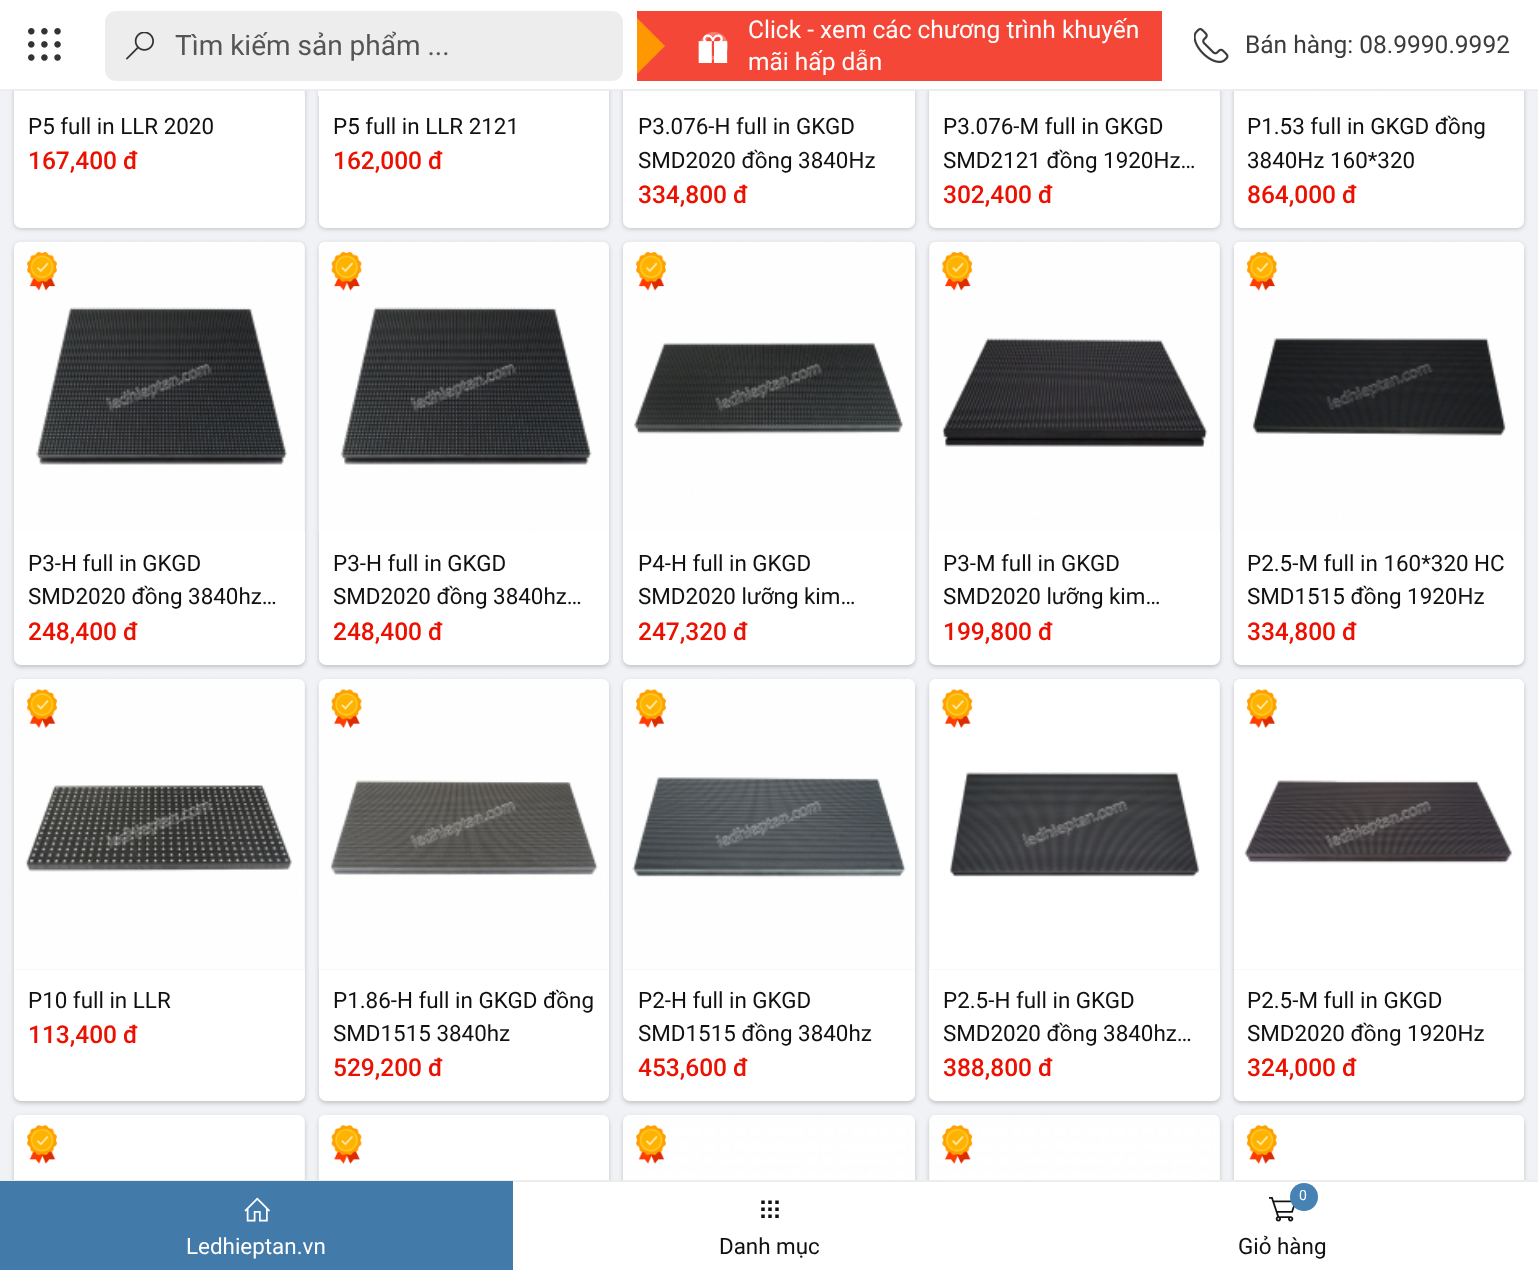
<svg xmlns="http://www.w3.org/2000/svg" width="1538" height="1270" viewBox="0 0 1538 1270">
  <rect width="100%" height="100%" fill="rgb(240,242,245)"/>
  <rect x="14" y="-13" width="291" height="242" rx="7" fill="rgba(0,0,0,0.2)" filter="blur(2px)"/>
  <rect x="14" y="-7" width="291" height="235" rx="7" fill="rgb(255,255,255)"/>
  <rect x="319" y="-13" width="290" height="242" rx="7" fill="rgba(0,0,0,0.2)" filter="blur(2px)"/>
  <rect x="319" y="-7" width="290" height="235" rx="7" fill="rgb(255,255,255)"/>
  <rect x="623" y="-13" width="292" height="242" rx="7" fill="rgba(0,0,0,0.2)" filter="blur(2px)"/>
  <rect x="623" y="-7" width="292" height="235" rx="7" fill="rgb(255,255,255)"/>
  <rect x="929" y="-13" width="291" height="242" rx="7" fill="rgba(0,0,0,0.2)" filter="blur(2px)"/>
  <rect x="929" y="-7" width="291" height="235" rx="7" fill="rgb(255,255,255)"/>
  <rect x="1234" y="-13" width="290" height="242" rx="7" fill="rgba(0,0,0,0.2)" filter="blur(2px)"/>
  <rect x="1234" y="-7" width="290" height="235" rx="7" fill="rgb(255,255,255)"/>
  <rect x="0" y="0" width="1538" height="89" fill="rgb(255,255,255)"/>
  <rect x="0" y="89" width="1538" height="2" fill="rgb(237,237,237)"/>
  <image x="28" y="28" width="33" height="33" href="pic1.png"/>
  <rect x="105" y="11" width="518" height="70" rx="11" fill="rgb(237,237,237)"/>
  <image x="126" y="32" width="28" height="28" href="pic2.png"/>
  <text x="175" y="55" font-family="Roboto" font-size="28" fill="rgb(85,85,85)">Tìm kiếm sản phẩm ...</text>
  <rect x="637" y="11" width="525" height="70" fill="rgb(245,71,55)"/>
  <path d="M637 74V18L665 46Z" fill="rgb(255,152,0)"/>
  <image x="698" y="34" width="30" height="29" href="pic3.png"/>
  <circle cx="714" cy="46" r="12" fill="none" stroke="rgba(255,255,255,0.3)" stroke-width="4"/>
  <g font-family="Roboto" font-size="24.5" fill="rgb(255,255,255)">
    <text>
      <tspan x="748" y="38">Click - xem các chương trình khuyến</tspan>
      <tspan x="748" y="70">mãi hấp dẫn</tspan>
    </text>
  </g>
  <image x="1194" y="28" width="35" height="35" href="pic4.png"/>
  <text x="1245" y="53" font-family="Roboto" font-size="24.5" fill="rgb(60,60,60)">Bán hàng: 08.9990.9992</text>
  <rect x="304" y="91" width="1" height="5" fill="rgb(249,249,249)"/>
  <text x="28" y="134" font-family="Roboto" font-size="22.4" fill="rgb(17,17,17)">P5 full in LLR 2020</text>
  <text x="28" y="169" font-family="Roboto" font-size="24.5" font-weight="500" fill="rgb(235,16,0)">167,400 đ</text>
  <rect x="318" y="91" width="1" height="5" fill="rgb(254,254,254)"/>
  <text x="333" y="134" font-family="Roboto" font-size="22.4" fill="rgb(17,17,17)">P5 full in LLR 2121</text>
  <text x="333" y="169" font-family="Roboto" font-size="24.5" font-weight="500" fill="rgb(235,16,0)">162,000 đ</text>
  <image x="623" y="91" width="292" height="5" href="pic5.png"/>
  <g font-family="Roboto" font-size="22.4" fill="rgb(17,17,17)">
    <text>
      <tspan x="638" y="134">P3.076-H full in GKGD</tspan>
      <tspan x="638" y="168">SMD2020 đồng 3840Hz</tspan>
    </text>
  </g>
  <text x="638" y="203" font-family="Roboto" font-size="24.5" font-weight="500" fill="rgb(235,16,0)">334,800 đ</text>
  <rect x="929" y="91" width="291" height="5" fill="rgb(249,249,249)"/>
  <rect x="930" y="91" width="289" height="5" fill="rgb(254,254,254)"/>
  <g font-family="Roboto" font-size="22.4" fill="rgb(17,17,17)">
    <text>
      <tspan x="943" y="134">P3.076-M full in GKGD</tspan>
      <tspan x="943" y="168">SMD2121 đồng 1920Hz…</tspan>
    </text>
  </g>
  <text x="943" y="203" font-family="Roboto" font-size="24.5" font-weight="500" fill="rgb(235,16,0)">302,400 đ</text>
  <image x="1234" y="91" width="290" height="5" href="pic6.png"/>
  <g font-family="Roboto" font-size="22.4" fill="rgb(17,17,17)">
    <text>
      <tspan x="1247" y="134">P1.53 full in GKGD đồng</tspan>
      <tspan x="1247" y="168">3840Hz 160*320</tspan>
    </text>
  </g>
  <text x="1247" y="203" font-family="Roboto" font-size="24.5" font-weight="500" fill="rgb(235,16,0)">864,000 đ</text>
  <rect x="14" y="243" width="291" height="424" rx="7" fill="rgba(0,0,0,0.2)" filter="blur(2px)"/>
  <rect x="14" y="242" width="291" height="423" rx="7" fill="rgb(255,255,255)"/>
  <path d="M21 242H298C302 242 305 245 305 249V532H14V249C14 245 17 242 21 242Z" fill="rgb(249,249,249)"/>
  <image x="14" y="241" width="290" height="291" href="pic7.png"/>
  <image x="27" y="252" width="30" height="39" href="pic8.png"/>
  <g font-family="Roboto" font-size="22.4" fill="rgb(17,17,17)">
    <text>
      <tspan x="28" y="571">P3-H full in GKGD</tspan>
      <tspan x="28" y="604">SMD2020 đồng 3840hz…</tspan>
    </text>
  </g>
  <text x="28" y="640" font-family="Roboto" font-size="24.5" font-weight="500" fill="rgb(235,16,0)">248,400 đ</text>
  <rect x="319" y="243" width="290" height="424" rx="7" fill="rgba(0,0,0,0.2)" filter="blur(2px)"/>
  <rect x="319" y="242" width="290" height="423" rx="7" fill="rgb(255,255,255)"/>
  <image x="318" y="241" width="291" height="291" href="pic9.png"/>
  <image x="331" y="252" width="31" height="39" href="pic10.png"/>
  <g font-family="Roboto" font-size="22.4" fill="rgb(17,17,17)">
    <text>
      <tspan x="333" y="571">P3-H full in GKGD</tspan>
      <tspan x="333" y="604">SMD2020 đồng 3840hz…</tspan>
    </text>
  </g>
  <text x="333" y="640" font-family="Roboto" font-size="24.5" font-weight="500" fill="rgb(235,16,0)">248,400 đ</text>
  <rect x="623" y="243" width="292" height="424" rx="7" fill="rgba(0,0,0,0.2)" filter="blur(2px)"/>
  <rect x="623" y="242" width="292" height="423" rx="7" fill="rgb(255,255,255)"/>
  <image x="623" y="241" width="292" height="291" href="pic11.png"/>
  <image x="636" y="252" width="30" height="39" href="pic12.png"/>
  <g font-family="Roboto" font-size="22.4" fill="rgb(17,17,17)">
    <text>
      <tspan x="638" y="571">P4-H full in GKGD</tspan>
      <tspan x="638" y="604">SMD2020 lưỡng kim…</tspan>
    </text>
  </g>
  <text x="638" y="640" font-family="Roboto" font-size="24.5" font-weight="500" fill="rgb(235,16,0)">247,320 đ</text>
  <rect x="929" y="243" width="291" height="424" rx="7" fill="rgba(0,0,0,0.2)" filter="blur(2px)"/>
  <rect x="929" y="242" width="291" height="423" rx="7" fill="rgb(255,255,255)"/>
  <path d="M936 242H1213C1217 242 1220 245 1220 249V532H929V249C929 245 932 242 936 242Z" fill="rgb(249,249,249)"/>
  <image x="930" y="241" width="289" height="291" href="pic13.png"/>
  <image x="942" y="252" width="31" height="39" href="pic14.png"/>
  <g font-family="Roboto" font-size="22.4" fill="rgb(17,17,17)">
    <text>
      <tspan x="943" y="571">P3-M full in GKGD</tspan>
      <tspan x="943" y="604">SMD2020 lưỡng kim…</tspan>
    </text>
  </g>
  <text x="943" y="640" font-family="Roboto" font-size="24.5" font-weight="500" fill="rgb(235,16,0)">199,800 đ</text>
  <rect x="1234" y="243" width="290" height="424" rx="7" fill="rgba(0,0,0,0.2)" filter="blur(2px)"/>
  <rect x="1234" y="242" width="290" height="423" rx="7" fill="rgb(255,255,255)"/>
  <image x="1234" y="241" width="290" height="291" href="pic15.png"/>
  <image x="1246" y="252" width="31" height="39" href="pic16.png"/>
  <g font-family="Roboto" font-size="22.4" fill="rgb(17,17,17)">
    <text>
      <tspan x="1247" y="571">P2.5-M full in 160*320 HC</tspan>
      <tspan x="1247" y="604">SMD1515 đồng 1920Hz</tspan>
    </text>
  </g>
  <text x="1247" y="640" font-family="Roboto" font-size="24.5" font-weight="500" fill="rgb(235,16,0)">334,800 đ</text>
  <rect x="14" y="681" width="291" height="422" rx="7" fill="rgba(0,0,0,0.2)" filter="blur(2px)"/>
  <rect x="14" y="679" width="291" height="422" rx="7" fill="rgb(255,255,255)"/>
  <path d="M21 679H298C302 679 305 682 305 686V970H14V686C14 682 17 679 21 679Z" fill="rgb(249,249,249)"/>
  <image x="14" y="679" width="290" height="290" href="pic17.png"/>
  <image x="27" y="689" width="30" height="39" href="pic18.png"/>
  <text x="28" y="1008" font-family="Roboto" font-size="22.4" fill="rgb(17,17,17)">P10 full in LLR</text>
  <text x="28" y="1043" font-family="Roboto" font-size="24.5" font-weight="500" fill="rgb(235,16,0)">113,400 đ</text>
  <rect x="319" y="681" width="290" height="422" rx="7" fill="rgba(0,0,0,0.2)" filter="blur(2px)"/>
  <rect x="319" y="679" width="290" height="422" rx="7" fill="rgb(255,255,255)"/>
  <path d="M326 679H602C606 679 609 682 609 686V970H319V686C319 682 322 679 326 679Z" fill="rgb(249,249,249)"/>
  <image x="318" y="679" width="291" height="290" href="pic19.png"/>
  <image x="331" y="689" width="31" height="39" href="pic20.png"/>
  <g font-family="Roboto" font-size="22.4" fill="rgb(17,17,17)">
    <text>
      <tspan x="333" y="1008">P1.86-H full in GKGD đồng</tspan>
      <tspan x="333" y="1041">SMD1515 3840hz</tspan>
    </text>
  </g>
  <text x="333" y="1076" font-family="Roboto" font-size="24.5" font-weight="500" fill="rgb(235,16,0)">529,200 đ</text>
  <rect x="623" y="681" width="292" height="422" rx="7" fill="rgba(0,0,0,0.2)" filter="blur(2px)"/>
  <rect x="623" y="679" width="292" height="422" rx="7" fill="rgb(255,255,255)"/>
  <path d="M630 679H908C912 679 915 682 915 686V970H623V686C623 682 626 679 630 679Z" fill="rgb(249,249,249)"/>
  <image x="623" y="679" width="292" height="290" href="pic21.png"/>
  <image x="636" y="689" width="30" height="39" href="pic22.png"/>
  <g font-family="Roboto" font-size="22.4" fill="rgb(17,17,17)">
    <text>
      <tspan x="638" y="1008">P2-H full in GKGD</tspan>
      <tspan x="638" y="1041">SMD1515 đồng 3840hz</tspan>
    </text>
  </g>
  <text x="638" y="1076" font-family="Roboto" font-size="24.5" font-weight="500" fill="rgb(235,16,0)">453,600 đ</text>
  <rect x="929" y="681" width="291" height="422" rx="7" fill="rgba(0,0,0,0.2)" filter="blur(2px)"/>
  <rect x="929" y="679" width="291" height="422" rx="7" fill="rgb(255,255,255)"/>
  <path d="M936 679H1213C1217 679 1220 682 1220 686V970H929V686C929 682 932 679 936 679Z" fill="rgb(249,249,249)"/>
  <image x="930" y="679" width="289" height="290" href="pic23.png"/>
  <image x="942" y="689" width="31" height="39" href="pic24.png"/>
  <g font-family="Roboto" font-size="22.4" fill="rgb(17,17,17)">
    <text>
      <tspan x="943" y="1008">P2.5-H full in GKGD</tspan>
      <tspan x="943" y="1041">SMD2020 đồng 3840hz…</tspan>
    </text>
  </g>
  <text x="943" y="1076" font-family="Roboto" font-size="24.5" font-weight="500" fill="rgb(235,16,0)">388,800 đ</text>
  <rect x="1234" y="681" width="290" height="422" rx="7" fill="rgba(0,0,0,0.2)" filter="blur(2px)"/>
  <rect x="1234" y="679" width="290" height="422" rx="7" fill="rgb(255,255,255)"/>
  <path d="M1241 679H1517C1521 679 1524 682 1524 686V970H1234V686C1234 682 1237 679 1241 679Z" fill="rgb(249,249,249)"/>
  <image x="1234" y="679" width="290" height="290" href="pic25.png"/>
  <image x="1246" y="689" width="31" height="39" href="pic26.png"/>
  <g font-family="Roboto" font-size="22.4" fill="rgb(17,17,17)">
    <text>
      <tspan x="1247" y="1008">P2.5-M full in GKGD</tspan>
      <tspan x="1247" y="1041">SMD2020 đồng 1920Hz</tspan>
    </text>
  </g>
  <text x="1247" y="1076" font-family="Roboto" font-size="24.5" font-weight="500" fill="rgb(235,16,0)">324,000 đ</text>
  <rect x="14" y="1117" width="291" height="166" rx="7" fill="rgba(0,0,0,0.2)" filter="blur(2px)"/>
  <path d="M21 1115H298C302 1115 305 1118 305 1122V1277H14V1122C14 1118 17 1115 21 1115Z" fill="rgb(249,249,249)"/>
  <image x="14" y="1115" width="290" height="65" href="pic27.png"/>
  <image x="27" y="1125" width="30" height="39" href="pic28.png"/>
  <rect x="319" y="1117" width="290" height="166" rx="7" fill="rgba(0,0,0,0.2)" filter="blur(2px)"/>
  <image x="318" y="1115" width="291" height="65" href="pic29.png"/>
  <image x="331" y="1125" width="31" height="39" href="pic30.png"/>
  <rect x="623" y="1117" width="292" height="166" rx="7" fill="rgba(0,0,0,0.2)" filter="blur(2px)"/>
  <image x="623" y="1115" width="292" height="65" href="pic31.png"/>
  <image x="636" y="1125" width="30" height="39" href="pic32.png"/>
  <rect x="929" y="1117" width="291" height="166" rx="7" fill="rgba(0,0,0,0.2)" filter="blur(2px)"/>
  <path d="M936 1115H1213C1217 1115 1220 1118 1220 1122V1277H929V1122C929 1118 932 1115 936 1115Z" fill="rgb(249,249,249)"/>
  <image x="930" y="1115" width="289" height="65" href="pic33.png"/>
  <image x="942" y="1125" width="31" height="39" href="pic34.png"/>
  <rect x="1234" y="1117" width="290" height="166" rx="7" fill="rgba(0,0,0,0.2)" filter="blur(2px)"/>
  <image x="1234" y="1115" width="290" height="65" href="pic35.png"/>
  <image x="1246" y="1125" width="31" height="39" href="pic36.png"/>
  <rect x="513" y="1182" width="1025" height="88" fill="rgb(255,255,255)"/>
  <rect x="0" y="1180" width="1538" height="2" fill="rgb(237,237,237)"/>
  <rect x="0" y="1181" width="513" height="89" fill="rgb(66,122,169)"/>
  <image x="244" y="1197" width="26" height="25" href="pic37.png"/>
  <text x="186" y="1254" font-family="Roboto" font-size="22.4" fill="rgb(255,255,255)">Ledhieptan.vn</text>
  <image x="761" y="1200" width="18" height="18" href="pic38.png"/>
  <text x="719" y="1254" font-family="Roboto" font-size="22.4" fill="rgb(17,17,17)">Danh mục</text>
  <image x="1269" y="1197" width="26" height="25" href="pic39.png"/>
  <circle cx="1304" cy="1197" r="14" fill="rgb(70,130,180)"/>
  <text x="1299" y="1200" font-family="Roboto" font-size="14" fill="rgb(255,255,255)">0</text>
  <text x="1238" y="1254" font-family="Roboto" font-size="22.4" fill="rgb(17,17,17)">Giỏ hàng</text>
</svg>
